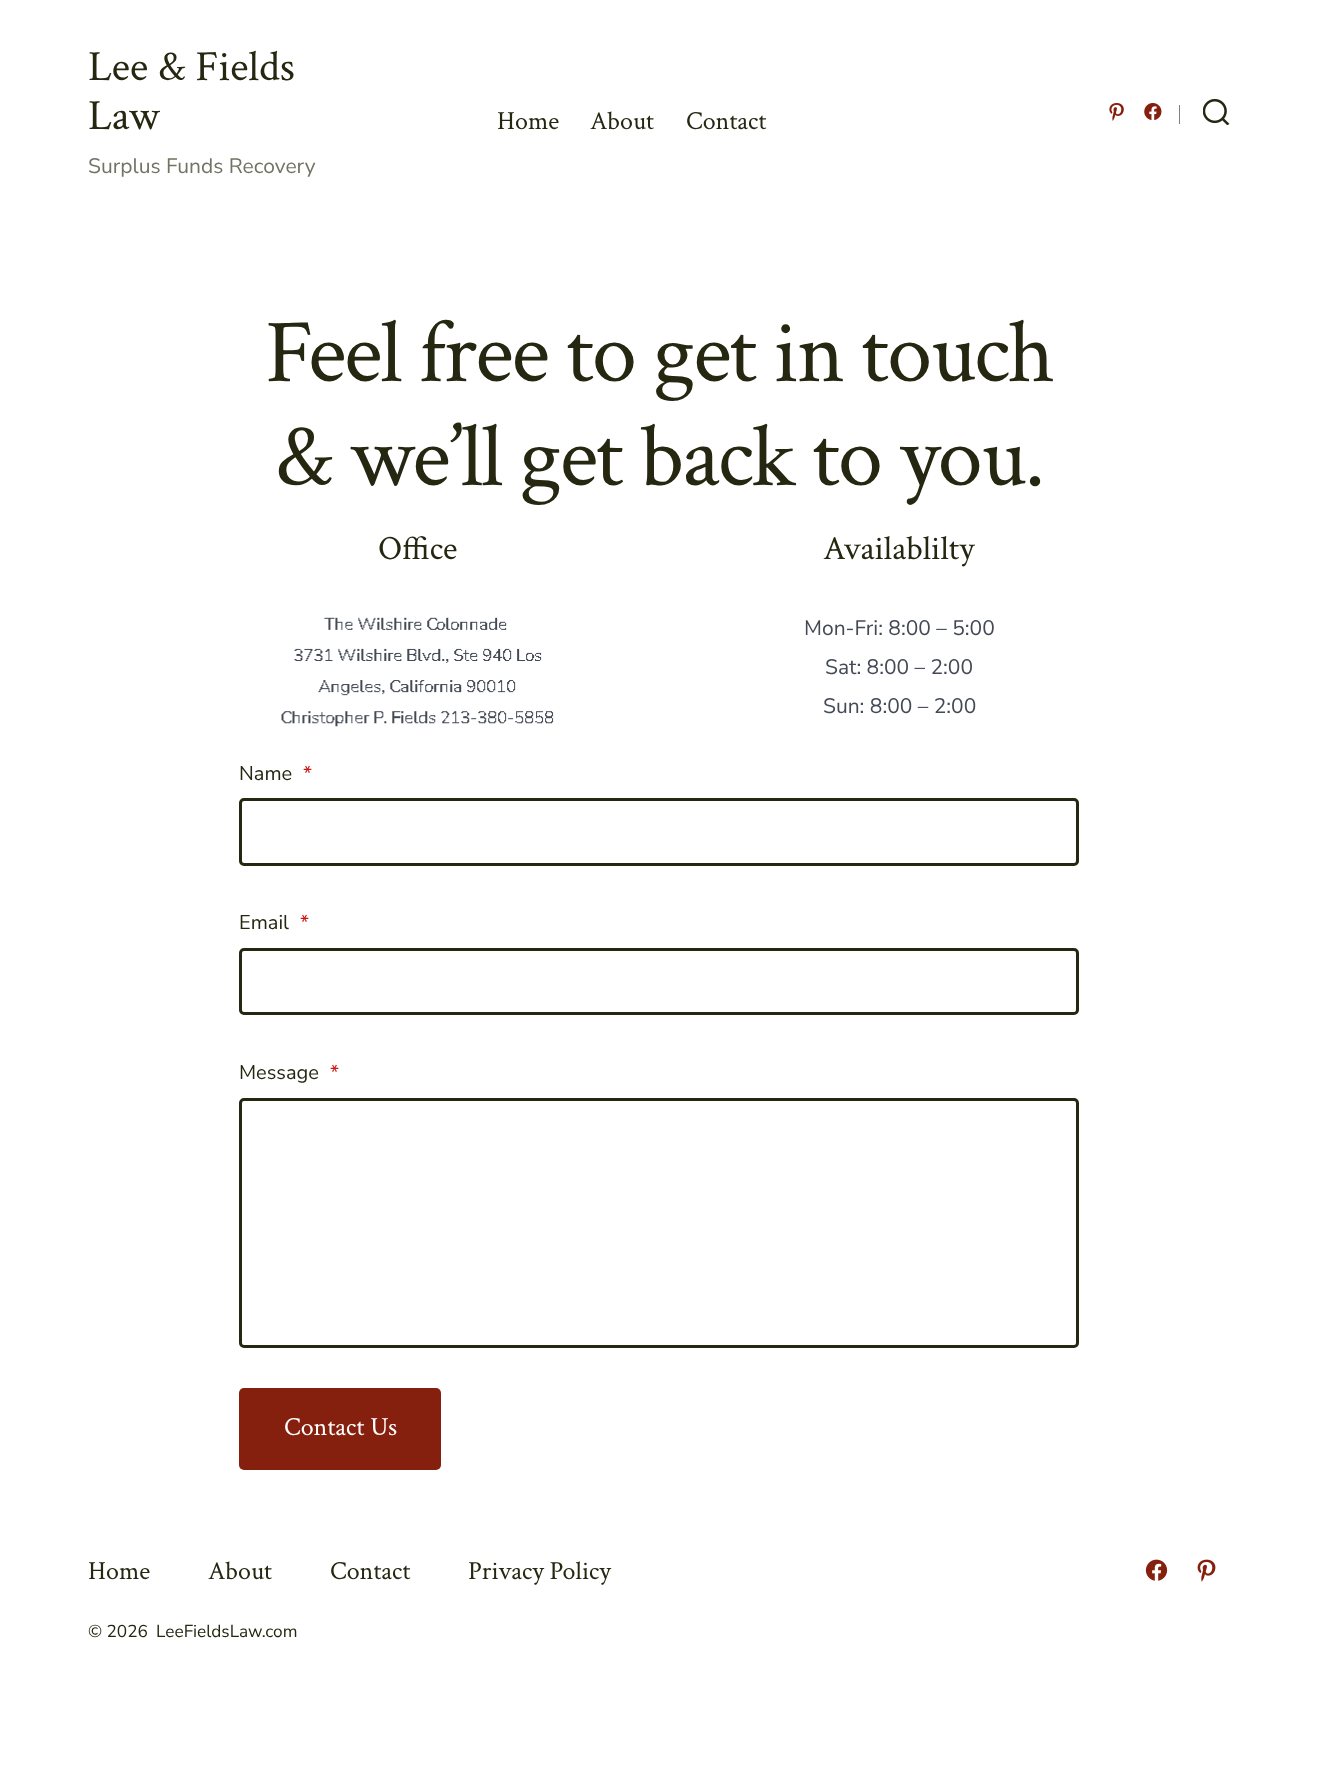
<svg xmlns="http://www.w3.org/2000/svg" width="1317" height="1771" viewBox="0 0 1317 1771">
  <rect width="100%" height="100%" fill="rgb(255,255,255)"/>
  <g font-family="Crimson Text" font-size="43" fill="rgb(37,39,17)">
    <text>
      <tspan x="88" y="80">Lee &amp; Fields</tspan>
      <tspan x="88" y="129">Law</tspan>
    </text>
  </g>
  <text x="88" y="173" font-family="Nunito Sans" font-size="21" fill="rgb(113,115,100)">Surplus Funds Recovery</text>
  <g font-family="Crimson Text" font-size="26" fill="rgb(37,39,17)">
    <text x="497" y="129">Home</text>
    <text x="590" y="129">About</text>
    <text x="686" y="129">Contact</text>
  </g>
  <image x="1109" y="103" width="15" height="18" href="pic1.png"/>
  <image x="1144" y="103" width="18" height="18" href="pic2.png"/>
  <rect x="1179" y="105" width="1" height="19" fill="rgb(128,128,128)"/>
  <image x="1203" y="99" width="27" height="26" href="pic3.png"/>
  <g font-family="Crimson Text" font-size="90.25" letter-spacing="-1.8" fill="rgb(37,39,17)">
    <text x="265" y="381">Feel free to get in touch</text>
    <text x="274" y="485">&amp; we’ll get back to you.</text>
  </g>
  <text x="378" y="559" font-family="Crimson Text" font-size="34" fill="rgb(37,39,17)">Office</text>
  <image x="281" y="617" width="273" height="110" href="pic4.png"/>
  <text x="823" y="559" font-family="Crimson Text" font-size="34" fill="rgb(37,39,17)">Availablilty</text>
  <g font-family="Nunito Sans" font-size="21" fill="rgb(67,74,86)">
    <text x="804" y="635">Mon-Fri: 8:00 – 5:00</text>
    <text x="825" y="674">Sat: 8:00 – 2:00</text>
    <text x="823" y="713">Sun: 8:00 – 2:00</text>
  </g>
  <text x="239" y="780" font-family="Nunito Sans" font-size="20" fill="rgb(37,39,17)">Name</text>
  <text x="303" y="780" font-family="Nunito Sans" font-size="20" fill="rgb(204,24,24)">*</text>
  <rect x="240.5" y="799.5" width="837" height="65" rx="3.5" fill="none" stroke="rgb(37,39,17)" stroke-width="3"/>
  <text x="239" y="929" font-family="Nunito Sans" font-size="20" fill="rgb(37,39,17)">Email</text>
  <text x="300" y="929" font-family="Nunito Sans" font-size="20" fill="rgb(204,24,24)">*</text>
  <rect x="240.5" y="949.5" width="837" height="64" rx="3.5" fill="none" stroke="rgb(37,39,17)" stroke-width="3"/>
  <text x="239" y="1079" font-family="Nunito Sans" font-size="20" fill="rgb(37,39,17)">Message</text>
  <text x="330" y="1079" font-family="Nunito Sans" font-size="20" fill="rgb(204,24,24)">*</text>
  <rect x="240.5" y="1099.5" width="837" height="247" rx="3.5" fill="none" stroke="rgb(37,39,17)" stroke-width="3"/>
  <rect x="239" y="1388" width="202" height="82" rx="5" fill="rgb(134,32,14)"/>
  <text x="284" y="1435" font-family="Crimson Text" font-size="26" fill="rgb(255,255,255)">Contact Us</text>
  <g font-family="Crimson Text" font-size="26" fill="rgb(37,39,17)">
    <text x="88" y="1579">Home</text>
    <text x="208" y="1579">About</text>
    <text x="330" y="1579">Contact</text>
    <text x="468" y="1579">Privacy Policy</text>
  </g>
  <image x="1145" y="1559" width="23" height="22" href="pic5.png"/>
  <image x="1197" y="1559" width="19" height="23" href="pic6.png"/>
  <g font-family="Nunito Sans" font-size="17.25" fill="rgb(37,39,17)">
    <text x="88" y="1637">© 2026</text>
    <text x="156" y="1637">LeeFieldsLaw.com</text>
  </g>
</svg>
